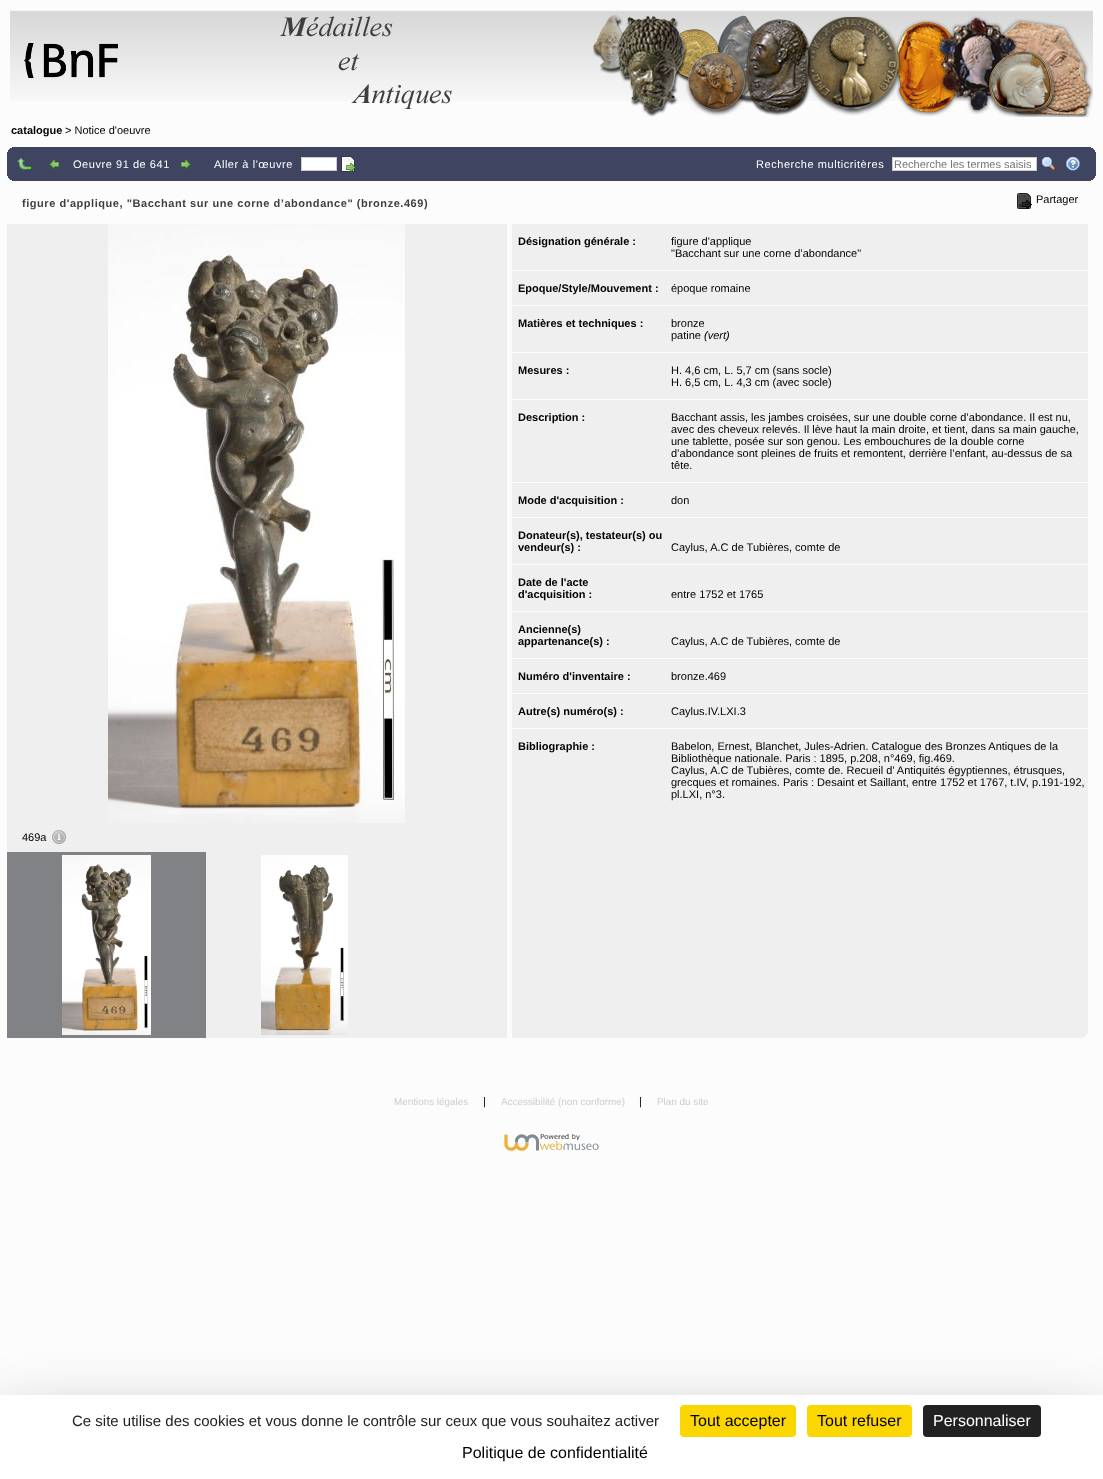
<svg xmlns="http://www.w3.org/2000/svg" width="1103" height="1479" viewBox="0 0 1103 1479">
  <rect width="100%" height="100%" fill="rgb(252,252,252)"/>
  <image x="10" y="10" width="1083" height="91" href="pic1.png"/>
  <image x="24" y="16" width="428" height="93" href="pic2.png"/>
  <image x="593" y="15" width="500" height="102" href="pic3.png"/>
  <text x="11" y="134" font-family="Liberation Sans" font-size="11" font-weight="bold" fill="rgb(0,0,0)">catalogue</text>
  <text x="65" y="134" font-family="Liberation Sans" font-size="11" fill="rgb(0,0,0)">&gt; Notice d'oeuvre</text>
  <rect x="7" y="147" width="1089" height="34" fill="rgb(63,68,97)"/>
  <image x="7" y="147" width="5" height="5" href="pic4.png"/>
  <image x="1091" y="147" width="5" height="5" href="pic5.png"/>
  <image x="7" y="176" width="5" height="5" href="pic6.png"/>
  <image x="17" y="158" width="15" height="12" href="pic7.png"/>
  <image x="49" y="160" width="10" height="9" href="pic8.png"/>
  <text x="73" y="168" font-family="Liberation Sans" font-size="11" letter-spacing="0.55" fill="rgb(255,255,255)">Oeuvre 91 de 641</text>
  <image x="181" y="160" width="10" height="9" href="pic9.png"/>
  <text x="214" y="168" font-family="Liberation Sans" font-size="11" letter-spacing="0.55" fill="rgb(255,255,255)">Aller à l'œuvre</text>
  <rect x="301.5" y="157.5" width="35" height="13" fill="rgb(255,255,255)" stroke="rgb(204,204,204)"/>
  <image x="341" y="156" width="15" height="16" href="pic10.png"/>
  <image x="1091" y="176" width="5" height="5" href="pic11.png"/>
  <text x="756" y="168" font-family="Liberation Sans" font-size="11" letter-spacing="0.55" fill="rgb(255,255,255)">Recherche multicritères</text>
  <rect x="892.5" y="157.5" width="144" height="13" fill="rgb(255,255,255)" stroke="rgb(204,204,204)"/>
  <text x="894" y="168" font-family="Liberation Sans" font-size="11" fill="rgb(117,117,117)">Recherche les termes saisis</text>
  <image x="1042" y="157" width="13" height="14" href="pic12.png"/>
  <image x="1066" y="157" width="14" height="14" href="pic13.png"/>
  <text x="22" y="207" font-family="Liberation Sans" font-size="11" font-weight="bold" letter-spacing="0.55" fill="rgb(63,63,63)">figure d'applique, "Bacchant sur une corne d’abondance" (bronze.469)</text>
  <image x="1017" y="193" width="15" height="16" href="pic14.png"/>
  <text x="1036" y="203" font-family="Liberation Sans" font-size="11" fill="rgb(0,0,0)">Partager</text>
  <rect x="512" y="224" width="576" height="814" fill="rgb(239,239,239)"/>
  <image x="1083" y="1033" width="5" height="5" href="pic15.png"/>
  <text x="518" y="245" font-family="Liberation Sans" font-size="11" font-weight="bold" fill="rgb(0,0,0)">Désignation générale :</text>
  <g font-family="Liberation Sans" font-size="11" fill="rgb(0,0,0)">
    <text>
      <tspan x="671" y="245">figure d'applique</tspan>
      <tspan x="671" y="257">"Bacchant sur une corne d’abondance"</tspan>
    </text>
  </g>
  <rect x="512" y="270" width="576" height="1" fill="rgb(252,252,252)"/>
  <text x="518" y="292" font-family="Liberation Sans" font-size="11" font-weight="bold" fill="rgb(0,0,0)">Epoque/Style/Mouvement :</text>
  <text x="671" y="292" font-family="Liberation Sans" font-size="11" fill="rgb(0,0,0)">époque romaine</text>
  <rect x="512" y="305" width="576" height="1" fill="rgb(252,252,252)"/>
  <text x="518" y="327" font-family="Liberation Sans" font-size="11" font-weight="bold" fill="rgb(0,0,0)">Matières et techniques :</text>
  <g font-family="Liberation Sans" font-size="11" fill="rgb(0,0,0)">
    <text>
      <tspan x="671" y="327">bronze</tspan>
      <tspan x="671" y="339">patine</tspan>
    </text>
  </g>
  <text x="704" y="339" font-family="Liberation Sans" font-size="11" font-style="italic" fill="rgb(0,0,0)">(vert)</text>
  <rect x="512" y="352" width="576" height="1" fill="rgb(252,252,252)"/>
  <text x="518" y="374" font-family="Liberation Sans" font-size="11" font-weight="bold" fill="rgb(0,0,0)">Mesures :</text>
  <g font-family="Liberation Sans" font-size="11" fill="rgb(0,0,0)">
    <text>
      <tspan x="671" y="374">H. 4,6 cm, L. 5,7 cm (sans socle)</tspan>
      <tspan x="671" y="386">H. 6,5 cm, L. 4,3 cm (avec socle)</tspan>
    </text>
  </g>
  <rect x="512" y="399" width="576" height="1" fill="rgb(252,252,252)"/>
  <text x="518" y="421" font-family="Liberation Sans" font-size="11" font-weight="bold" fill="rgb(0,0,0)">Description :</text>
  <g font-family="Liberation Sans" font-size="11" fill="rgb(0,0,0)">
    <text>
      <tspan x="671" y="421">Bacchant assis, les jambes croisées, sur une double corne d’abondance. Il est nu,</tspan>
      <tspan x="671" y="433">avec des cheveux relevés. Il lève haut la main droite, et tient, dans sa main gauche,</tspan>
      <tspan x="671" y="445">une tablette, posée sur son genou. Les embouchures de la double corne</tspan>
      <tspan x="671" y="457">d’abondance sont pleines de fruits et remontent, derrière l’enfant, au-dessus de sa</tspan>
      <tspan x="671" y="469">tête.</tspan>
    </text>
  </g>
  <rect x="512" y="482" width="576" height="1" fill="rgb(252,252,252)"/>
  <text x="518" y="504" font-family="Liberation Sans" font-size="11" font-weight="bold" fill="rgb(0,0,0)">Mode d'acquisition :</text>
  <text x="671" y="504" font-family="Liberation Sans" font-size="11" fill="rgb(0,0,0)">don</text>
  <rect x="512" y="517" width="576" height="1" fill="rgb(252,252,252)"/>
  <g font-family="Liberation Sans" font-size="11" font-weight="bold" fill="rgb(0,0,0)">
    <text>
      <tspan x="518" y="539">Donateur(s), testateur(s) ou</tspan>
      <tspan x="518" y="551">vendeur(s) :</tspan>
    </text>
  </g>
  <text x="671" y="551" font-family="Liberation Sans" font-size="11" fill="rgb(0,0,0)">Caylus, A.C de Tubières, comte de</text>
  <rect x="512" y="564" width="576" height="1" fill="rgb(252,252,252)"/>
  <g font-family="Liberation Sans" font-size="11" font-weight="bold" fill="rgb(0,0,0)">
    <text>
      <tspan x="518" y="586">Date de l'acte</tspan>
      <tspan x="518" y="598">d'acquisition :</tspan>
    </text>
  </g>
  <text x="671" y="598" font-family="Liberation Sans" font-size="11" fill="rgb(0,0,0)">entre 1752 et 1765</text>
  <rect x="512" y="611" width="576" height="1" fill="rgb(252,252,252)"/>
  <g font-family="Liberation Sans" font-size="11" font-weight="bold" fill="rgb(0,0,0)">
    <text>
      <tspan x="518" y="633">Ancienne(s)</tspan>
      <tspan x="518" y="645">appartenance(s) :</tspan>
    </text>
  </g>
  <text x="671" y="645" font-family="Liberation Sans" font-size="11" fill="rgb(0,0,0)">Caylus, A.C de Tubières, comte de</text>
  <rect x="512" y="658" width="576" height="1" fill="rgb(252,252,252)"/>
  <text x="518" y="680" font-family="Liberation Sans" font-size="11" font-weight="bold" fill="rgb(0,0,0)">Numéro d'inventaire :</text>
  <text x="671" y="680" font-family="Liberation Sans" font-size="11" fill="rgb(0,0,0)">bronze.469</text>
  <rect x="512" y="693" width="576" height="1" fill="rgb(252,252,252)"/>
  <text x="518" y="715" font-family="Liberation Sans" font-size="11" font-weight="bold" fill="rgb(0,0,0)">Autre(s) numéro(s) :</text>
  <text x="671" y="715" font-family="Liberation Sans" font-size="11" fill="rgb(0,0,0)">Caylus.IV.LXI.3</text>
  <rect x="512" y="728" width="576" height="1" fill="rgb(252,252,252)"/>
  <text x="518" y="750" font-family="Liberation Sans" font-size="11" font-weight="bold" fill="rgb(0,0,0)">Bibliographie :</text>
  <g font-family="Liberation Sans" font-size="11" fill="rgb(0,0,0)">
    <text>
      <tspan x="671" y="750">Babelon, Ernest, Blanchet, Jules-Adrien. Catalogue des Bronzes Antiques de la</tspan>
      <tspan x="671" y="762">Bibliothèque nationale. Paris : 1895, p.208, n°469, fig.469.</tspan>
      <tspan x="671" y="774">Caylus, A.C de Tubières, comte de. Recueil d’ Antiquités égyptiennes, étrusques,</tspan>
      <tspan x="671" y="786">grecques et romaines. Paris : Desaint et Saillant, entre 1752 et 1767, t.IV, p.191-192,</tspan>
      <tspan x="671" y="798">pl.LXI, n°3.</tspan>
    </text>
  </g>
  <rect x="7" y="224" width="500" height="814" fill="rgb(239,239,239)"/>
  <image x="108" y="224" width="297" height="599" href="pic16.png"/>
  <text x="22" y="841" font-family="Liberation Sans" font-size="11" fill="rgb(0,0,0)">469a</text>
  <image x="52" y="830" width="14" height="14" href="pic17.png"/>
  <rect x="7" y="852" width="199" height="186" fill="rgb(129,130,133)"/>
  <image x="62" y="855" width="89" height="180" href="pic18.png"/>
  <image x="261" y="855" width="87" height="180" href="pic19.png"/>
  <text x="394" y="1105" font-family="Liberation Sans" font-size="9.9" fill="rgb(204,204,204)">Mentions légales</text>
  <text x="483" y="1105" font-family="Liberation Sans" font-size="11" fill="rgb(0,0,0)">|</text>
  <text x="501" y="1105" font-family="Liberation Sans" font-size="9.9" fill="rgb(204,204,204)">Accessibilité (non conforme)</text>
  <text x="639" y="1105" font-family="Liberation Sans" font-size="11" fill="rgb(0,0,0)">|</text>
  <text x="657" y="1105" font-family="Liberation Sans" font-size="9.9" fill="rgb(204,204,204)">Plan du site</text>
  <image x="504" y="1134" width="95" height="17" href="pic20.png"/>
  <rect x="0" y="1415" width="1103" height="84" fill="rgba(0,0,0,0.25)" filter="blur(30px)"/>
  <rect x="0" y="1395" width="1103" height="84" fill="rgb(255,255,255)"/>
  <text x="72" y="1426" font-family="Liberation Sans" font-size="15" fill="rgb(34,34,34)">Ce site utilise des cookies et vous donne le contrôle sur ceux que vous souhaitez activer</text>
  <rect x="680" y="1405" width="116" height="32" rx="4" fill="rgb(251,214,0)"/>
  <text x="690" y="1426" font-family="Liberation Sans" font-size="16" fill="rgb(0,0,0)">Tout accepter</text>
  <rect x="807" y="1405" width="105" height="32" rx="4" fill="rgb(251,214,0)"/>
  <text x="817" y="1426" font-family="Liberation Sans" font-size="16" fill="rgb(0,0,0)">Tout refuser</text>
  <rect x="923" y="1405" width="118" height="32" rx="4" fill="rgb(34,34,34)"/>
  <text x="933" y="1426" font-family="Liberation Sans" font-size="16" fill="rgb(255,255,255)">Personnaliser</text>
  <text x="462" y="1458" font-family="Liberation Sans" font-size="16" fill="rgb(0,0,0)">Politique de confidentialité</text>
</svg>
